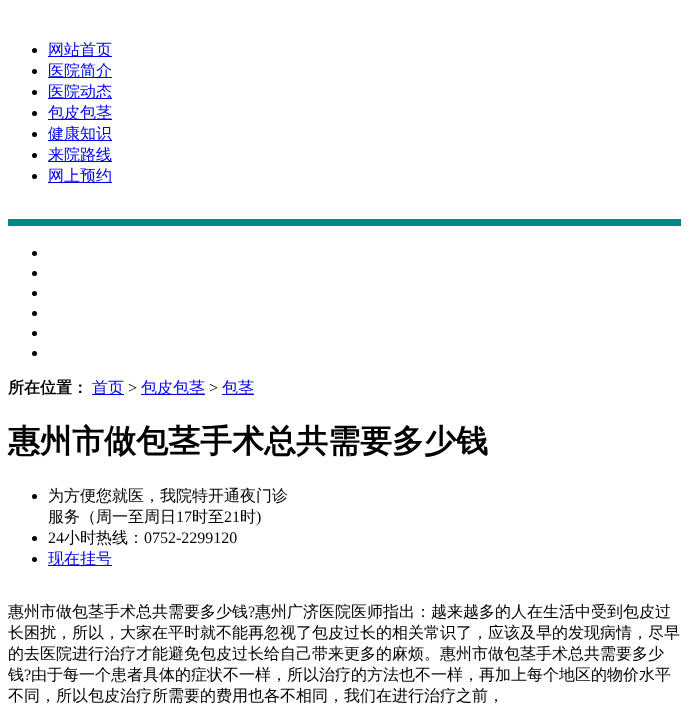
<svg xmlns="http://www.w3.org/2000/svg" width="689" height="708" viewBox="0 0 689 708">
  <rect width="100%" height="100%" fill="rgb(255,255,255)"/>
  <circle cx="34.5" cy="50.5" r="2.5" fill="rgb(0,0,0)"/>
  <rect x="48" y="56" width="64" height="1" fill="rgb(0,0,238)"/>
  <text x="48" y="55" font-family="WenQuanYi Zen Hei" font-size="16" font-weight="500" fill="rgb(0,0,238)">网站首页</text>
  <circle cx="34.5" cy="71.5" r="2.5" fill="rgb(0,0,0)"/>
  <rect x="48" y="77" width="64" height="1" fill="rgb(0,0,238)"/>
  <text x="48" y="76" font-family="WenQuanYi Zen Hei" font-size="16" font-weight="500" fill="rgb(0,0,238)">医院简介</text>
  <circle cx="34.5" cy="92.5" r="2.5" fill="rgb(0,0,0)"/>
  <rect x="48" y="98" width="64" height="1" fill="rgb(0,0,238)"/>
  <text x="48" y="97" font-family="WenQuanYi Zen Hei" font-size="16" font-weight="500" fill="rgb(0,0,238)">医院动态</text>
  <circle cx="34.5" cy="113.5" r="2.5" fill="rgb(0,0,0)"/>
  <rect x="48" y="119" width="64" height="1" fill="rgb(0,0,238)"/>
  <text x="48" y="118" font-family="WenQuanYi Zen Hei" font-size="16" font-weight="500" fill="rgb(0,0,238)">包皮包茎</text>
  <circle cx="34.5" cy="134.5" r="2.5" fill="rgb(0,0,0)"/>
  <rect x="48" y="140" width="64" height="1" fill="rgb(0,0,238)"/>
  <text x="48" y="139" font-family="WenQuanYi Zen Hei" font-size="16" font-weight="500" fill="rgb(0,0,238)">健康知识</text>
  <circle cx="34.5" cy="155.5" r="2.5" fill="rgb(0,0,0)"/>
  <rect x="48" y="161" width="64" height="1" fill="rgb(0,0,238)"/>
  <text x="48" y="160" font-family="WenQuanYi Zen Hei" font-size="16" font-weight="500" fill="rgb(0,0,238)">来院路线</text>
  <circle cx="34.5" cy="176.5" r="2.5" fill="rgb(0,0,0)"/>
  <rect x="48" y="182" width="64" height="1" fill="rgb(0,0,238)"/>
  <text x="48" y="181" font-family="WenQuanYi Zen Hei" font-size="16" font-weight="500" fill="rgb(0,0,238)">网上预约</text>
  <rect x="8" y="219" width="673" height="7" fill="rgb(0,138,134)"/>
  <circle cx="34.5" cy="253.5" r="2.5" fill="rgb(0,0,0)"/>
  <circle cx="34.5" cy="273.5" r="2.5" fill="rgb(0,0,0)"/>
  <circle cx="34.5" cy="293.5" r="2.5" fill="rgb(0,0,0)"/>
  <circle cx="34.5" cy="313.5" r="2.5" fill="rgb(0,0,0)"/>
  <circle cx="34.5" cy="333.5" r="2.5" fill="rgb(0,0,0)"/>
  <circle cx="34.5" cy="353.5" r="2.5" fill="rgb(0,0,0)"/>
  <text x="8" y="393" font-family="WenQuanYi Zen Hei" font-size="16" font-weight="bold" fill="rgb(0,0,0)">所在位置：</text>
  <rect x="92" y="394" width="32" height="1" fill="rgb(0,0,238)"/>
  <text x="92" y="393" font-family="WenQuanYi Zen Hei" font-size="16" font-weight="500" fill="rgb(0,0,238)">首页</text>
  <text x="128" y="393" font-family="Liberation Serif" font-size="16" fill="rgb(0,0,0)">&gt;</text>
  <rect x="141" y="394" width="64" height="1" fill="rgb(0,0,238)"/>
  <text x="141" y="393" font-family="WenQuanYi Zen Hei" font-size="16" font-weight="500" fill="rgb(0,0,238)">包皮包茎</text>
  <text x="209" y="393" font-family="Liberation Serif" font-size="16" fill="rgb(0,0,0)">&gt;</text>
  <rect x="222" y="394" width="32" height="1" fill="rgb(0,0,238)"/>
  <text x="222" y="393" font-family="WenQuanYi Zen Hei" font-size="16" font-weight="500" fill="rgb(0,0,238)">包茎</text>
  <text x="8" y="452" font-family="WenQuanYi Zen Hei" font-size="32" font-weight="bold" fill="rgb(0,0,0)">惠州市做包茎手术总共需要多少钱</text>
  <circle cx="34.5" cy="496.5" r="2.5" fill="rgb(0,0,0)"/>
  <g font-family="WenQuanYi Zen Hei" font-size="16" font-weight="500" fill="rgb(0,0,0)">
    <text>
      <tspan x="48" y="501">为方便您就医，我院特开通夜门诊</tspan>
      <tspan x="48" y="522">服务（周一至周日</tspan>
    </text>
  </g>
  <text x="176" y="522" font-family="Liberation Serif" font-size="16" fill="rgb(0,0,0)">17</text>
  <text x="192" y="522" font-family="WenQuanYi Zen Hei" font-size="16" font-weight="500" fill="rgb(0,0,0)">时至</text>
  <text x="224" y="522" font-family="Liberation Serif" font-size="16" fill="rgb(0,0,0)">21</text>
  <text x="240" y="522" font-family="WenQuanYi Zen Hei" font-size="16" font-weight="500" fill="rgb(0,0,0)">时</text>
  <text x="256" y="522" font-family="Liberation Serif" font-size="16" fill="rgb(0,0,0)">)</text>
  <circle cx="34.5" cy="538.5" r="2.5" fill="rgb(0,0,0)"/>
  <text x="48" y="543" font-family="Liberation Serif" font-size="16" fill="rgb(0,0,0)">24</text>
  <text x="64" y="543" font-family="WenQuanYi Zen Hei" font-size="16" font-weight="500" fill="rgb(0,0,0)">小时热线：</text>
  <text x="144" y="543" font-family="Liberation Serif" font-size="16" fill="rgb(0,0,0)">0752-2299120</text>
  <circle cx="34.5" cy="559.5" r="2.5" fill="rgb(0,0,0)"/>
  <rect x="48" y="565" width="64" height="1" fill="rgb(0,0,238)"/>
  <text x="48" y="564" font-family="WenQuanYi Zen Hei" font-size="16" font-weight="500" fill="rgb(0,0,238)">现在挂号</text>
  <text x="8" y="617" font-family="WenQuanYi Zen Hei" font-size="16" font-weight="500" fill="rgb(0,0,0)">惠州市做包茎手术总共需要多少钱</text>
  <text x="248" y="617" font-family="Liberation Serif" font-size="16" fill="rgb(0,0,0)">?</text>
  <g font-family="WenQuanYi Zen Hei" font-size="16" font-weight="500" fill="rgb(0,0,0)">
    <text x="255" y="617">惠州广济医院医师指出：越来越多的人在生活中受到包皮过</text>
    <text>
      <tspan x="8" y="638">长困扰，所以，大家在平时就不能再忽视了包皮过长的相关常识了，应该及早的发现病情，尽早</tspan>
      <tspan x="8" y="659">的去医院进行治疗才能避免包皮过长给自己带来更多的麻烦。惠州市做包茎手术总共需要多少</tspan>
      <tspan x="8" y="680">钱</tspan>
    </text>
  </g>
  <text x="24" y="680" font-family="Liberation Serif" font-size="16" fill="rgb(0,0,0)">?</text>
  <g font-family="WenQuanYi Zen Hei" font-size="16" font-weight="500" fill="rgb(0,0,0)">
    <text x="31" y="680">由于每一个患者具体的症状不一样，所以治疗的方法也不一样，再加上每个地区的物价水平</text>
    <text x="8" y="701">不同，所以包皮治疗所需要的费用也各不相同，我们在进行治疗之前，</text>
  </g>
</svg>
